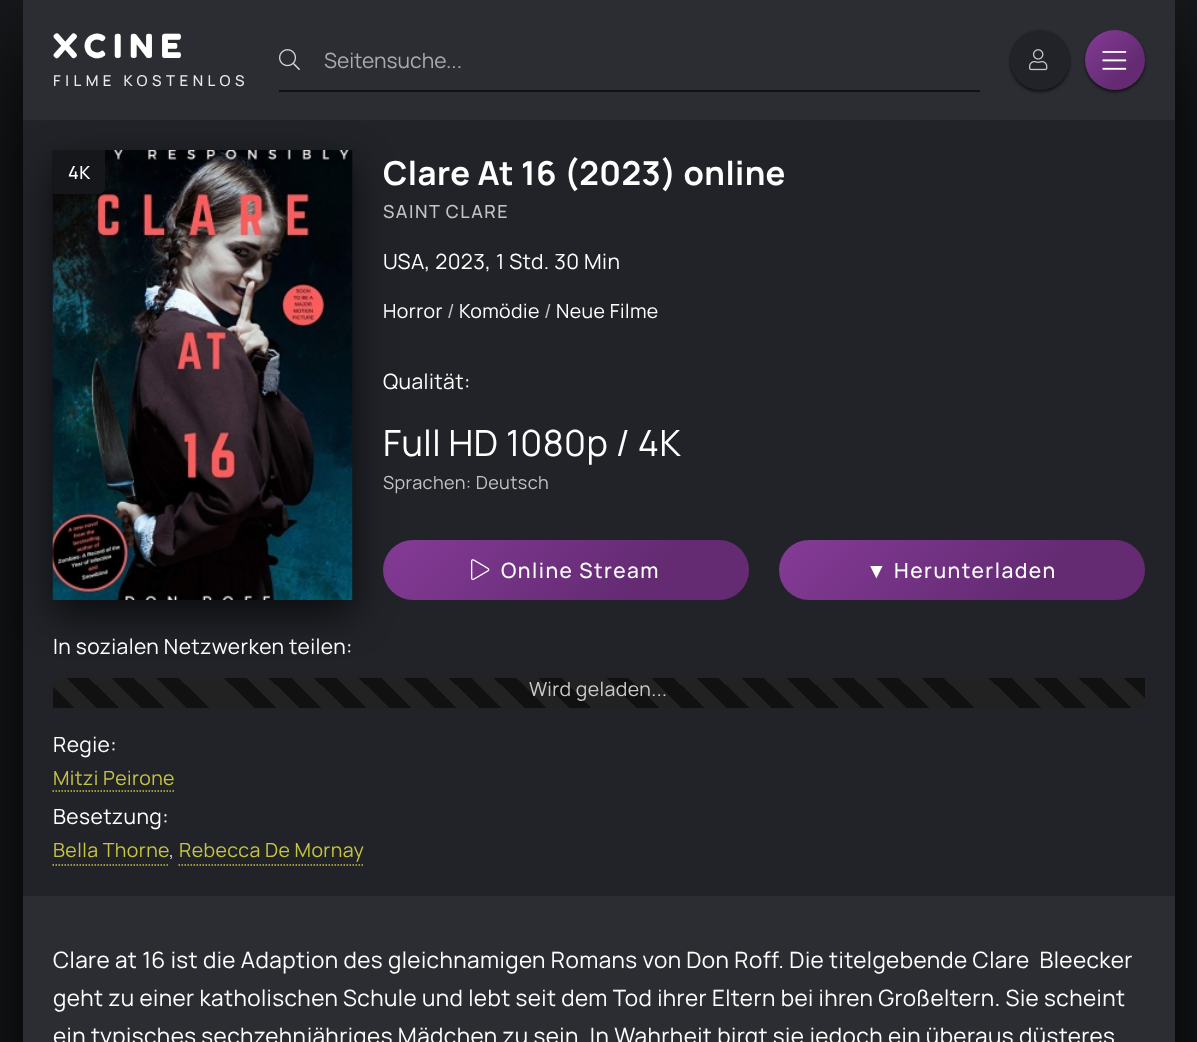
<svg xmlns="http://www.w3.org/2000/svg" width="1197" height="1042" viewBox="0 0 1197 1042">
  <defs>
    <linearGradient id="g1" gradientUnits="userSpaceOnUse" x1="1085" y1="30" x2="1145" y2="90"><stop offset="0" stop-color="rgb(133,59,151)"/><stop offset="0.7" stop-color="rgb(100,43,115)"/><stop offset="1" stop-color="rgb(100,43,115)"/></linearGradient>
    <linearGradient id="g2" gradientUnits="userSpaceOnUse" x1="459" y1="464" x2="672" y2="677"><stop offset="0" stop-color="rgb(133,59,151)"/><stop offset="0.7" stop-color="rgb(100,43,115)"/><stop offset="1" stop-color="rgb(100,43,115)"/></linearGradient>
    <linearGradient id="g3" gradientUnits="userSpaceOnUse" x1="855" y1="464" x2="1068" y2="677"><stop offset="0" stop-color="rgb(133,59,151)"/><stop offset="0.7" stop-color="rgb(100,43,115)"/><stop offset="1" stop-color="rgb(100,43,115)"/></linearGradient>
    <linearGradient id="g4" gradientUnits="userSpaceOnUse" x1="591" y1="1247" x2="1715" y2="122"><stop offset="0" stop-color="rgb(17,17,17)"/><stop offset="0.01" stop-color="rgb(17,17,17)"/><stop offset="0.01" stop-color="rgb(34,34,34)"/><stop offset="0.02" stop-color="rgb(34,34,34)"/><stop offset="0.02" stop-color="rgb(17,17,17)"/><stop offset="0.03" stop-color="rgb(17,17,17)"/><stop offset="0.03" stop-color="rgb(34,34,34)"/><stop offset="0.04" stop-color="rgb(34,34,34)"/><stop offset="0.04" stop-color="rgb(17,17,17)"/><stop offset="0.05" stop-color="rgb(17,17,17)"/><stop offset="0.05" stop-color="rgb(34,34,34)"/><stop offset="0.06" stop-color="rgb(34,34,34)"/><stop offset="0.06" stop-color="rgb(17,17,17)"/><stop offset="0.07" stop-color="rgb(17,17,17)"/><stop offset="0.07" stop-color="rgb(34,34,34)"/><stop offset="0.08" stop-color="rgb(34,34,34)"/><stop offset="0.08" stop-color="rgb(17,17,17)"/><stop offset="0.08" stop-color="rgb(17,17,17)"/><stop offset="0.08" stop-color="rgb(34,34,34)"/><stop offset="0.09" stop-color="rgb(34,34,34)"/><stop offset="0.09" stop-color="rgb(17,17,17)"/><stop offset="0.1" stop-color="rgb(17,17,17)"/><stop offset="0.1" stop-color="rgb(34,34,34)"/><stop offset="0.11" stop-color="rgb(34,34,34)"/><stop offset="0.11" stop-color="rgb(17,17,17)"/><stop offset="0.12" stop-color="rgb(17,17,17)"/><stop offset="0.12" stop-color="rgb(34,34,34)"/><stop offset="0.13" stop-color="rgb(34,34,34)"/><stop offset="0.13" stop-color="rgb(17,17,17)"/><stop offset="0.14" stop-color="rgb(17,17,17)"/><stop offset="0.14" stop-color="rgb(34,34,34)"/><stop offset="0.15" stop-color="rgb(34,34,34)"/><stop offset="0.15" stop-color="rgb(17,17,17)"/><stop offset="0.16" stop-color="rgb(17,17,17)"/><stop offset="0.16" stop-color="rgb(34,34,34)"/><stop offset="0.17" stop-color="rgb(34,34,34)"/><stop offset="0.17" stop-color="rgb(17,17,17)"/><stop offset="0.18" stop-color="rgb(17,17,17)"/><stop offset="0.18" stop-color="rgb(34,34,34)"/><stop offset="0.19" stop-color="rgb(34,34,34)"/><stop offset="0.19" stop-color="rgb(17,17,17)"/><stop offset="0.2" stop-color="rgb(17,17,17)"/><stop offset="0.2" stop-color="rgb(34,34,34)"/><stop offset="0.21" stop-color="rgb(34,34,34)"/><stop offset="0.21" stop-color="rgb(17,17,17)"/><stop offset="0.22" stop-color="rgb(17,17,17)"/><stop offset="0.22" stop-color="rgb(34,34,34)"/><stop offset="0.23" stop-color="rgb(34,34,34)"/><stop offset="0.23" stop-color="rgb(17,17,17)"/><stop offset="0.24" stop-color="rgb(17,17,17)"/><stop offset="0.24" stop-color="rgb(34,34,34)"/><stop offset="0.25" stop-color="rgb(34,34,34)"/><stop offset="0.25" stop-color="rgb(17,17,17)"/><stop offset="0.25" stop-color="rgb(17,17,17)"/><stop offset="0.25" stop-color="rgb(34,34,34)"/><stop offset="0.26" stop-color="rgb(34,34,34)"/><stop offset="0.26" stop-color="rgb(17,17,17)"/><stop offset="0.27" stop-color="rgb(17,17,17)"/><stop offset="0.27" stop-color="rgb(34,34,34)"/><stop offset="0.28" stop-color="rgb(34,34,34)"/><stop offset="0.28" stop-color="rgb(17,17,17)"/><stop offset="0.29" stop-color="rgb(17,17,17)"/><stop offset="0.29" stop-color="rgb(34,34,34)"/><stop offset="0.3" stop-color="rgb(34,34,34)"/><stop offset="0.3" stop-color="rgb(17,17,17)"/><stop offset="0.31" stop-color="rgb(17,17,17)"/><stop offset="0.31" stop-color="rgb(34,34,34)"/><stop offset="0.32" stop-color="rgb(34,34,34)"/><stop offset="0.32" stop-color="rgb(17,17,17)"/><stop offset="0.33" stop-color="rgb(17,17,17)"/><stop offset="0.33" stop-color="rgb(34,34,34)"/><stop offset="0.34" stop-color="rgb(34,34,34)"/><stop offset="0.34" stop-color="rgb(17,17,17)"/><stop offset="0.35" stop-color="rgb(17,17,17)"/><stop offset="0.35" stop-color="rgb(34,34,34)"/><stop offset="0.36" stop-color="rgb(34,34,34)"/><stop offset="0.36" stop-color="rgb(17,17,17)"/><stop offset="0.37" stop-color="rgb(17,17,17)"/><stop offset="0.37" stop-color="rgb(34,34,34)"/><stop offset="0.38" stop-color="rgb(34,34,34)"/><stop offset="0.38" stop-color="rgb(17,17,17)"/><stop offset="0.39" stop-color="rgb(17,17,17)"/><stop offset="0.39" stop-color="rgb(34,34,34)"/><stop offset="0.4" stop-color="rgb(34,34,34)"/><stop offset="0.4" stop-color="rgb(17,17,17)"/><stop offset="0.41" stop-color="rgb(17,17,17)"/><stop offset="0.41" stop-color="rgb(34,34,34)"/><stop offset="0.42" stop-color="rgb(34,34,34)"/><stop offset="0.42" stop-color="rgb(17,17,17)"/><stop offset="0.42" stop-color="rgb(17,17,17)"/><stop offset="0.42" stop-color="rgb(34,34,34)"/><stop offset="0.43" stop-color="rgb(34,34,34)"/><stop offset="0.43" stop-color="rgb(17,17,17)"/><stop offset="0.44" stop-color="rgb(17,17,17)"/><stop offset="0.44" stop-color="rgb(34,34,34)"/><stop offset="0.45" stop-color="rgb(34,34,34)"/><stop offset="0.45" stop-color="rgb(17,17,17)"/><stop offset="0.46" stop-color="rgb(17,17,17)"/><stop offset="0.46" stop-color="rgb(34,34,34)"/><stop offset="0.47" stop-color="rgb(34,34,34)"/><stop offset="0.47" stop-color="rgb(17,17,17)"/><stop offset="0.48" stop-color="rgb(17,17,17)"/><stop offset="0.48" stop-color="rgb(34,34,34)"/><stop offset="0.49" stop-color="rgb(34,34,34)"/><stop offset="0.49" stop-color="rgb(17,17,17)"/><stop offset="0.5" stop-color="rgb(17,17,17)"/><stop offset="0.5" stop-color="rgb(34,34,34)"/><stop offset="0.51" stop-color="rgb(34,34,34)"/><stop offset="0.51" stop-color="rgb(17,17,17)"/><stop offset="0.52" stop-color="rgb(17,17,17)"/><stop offset="0.52" stop-color="rgb(34,34,34)"/><stop offset="0.53" stop-color="rgb(34,34,34)"/><stop offset="0.53" stop-color="rgb(17,17,17)"/><stop offset="0.54" stop-color="rgb(17,17,17)"/><stop offset="0.54" stop-color="rgb(34,34,34)"/><stop offset="0.55" stop-color="rgb(34,34,34)"/><stop offset="0.55" stop-color="rgb(17,17,17)"/><stop offset="0.56" stop-color="rgb(17,17,17)"/><stop offset="0.56" stop-color="rgb(34,34,34)"/><stop offset="0.57" stop-color="rgb(34,34,34)"/><stop offset="0.57" stop-color="rgb(17,17,17)"/><stop offset="0.58" stop-color="rgb(17,17,17)"/><stop offset="0.58" stop-color="rgb(34,34,34)"/><stop offset="0.58" stop-color="rgb(34,34,34)"/><stop offset="0.58" stop-color="rgb(17,17,17)"/><stop offset="0.59" stop-color="rgb(17,17,17)"/><stop offset="0.59" stop-color="rgb(34,34,34)"/><stop offset="0.6" stop-color="rgb(34,34,34)"/><stop offset="0.6" stop-color="rgb(17,17,17)"/><stop offset="0.61" stop-color="rgb(17,17,17)"/><stop offset="0.61" stop-color="rgb(34,34,34)"/><stop offset="0.62" stop-color="rgb(34,34,34)"/><stop offset="0.62" stop-color="rgb(17,17,17)"/><stop offset="0.63" stop-color="rgb(17,17,17)"/><stop offset="0.63" stop-color="rgb(34,34,34)"/><stop offset="0.64" stop-color="rgb(34,34,34)"/><stop offset="0.64" stop-color="rgb(17,17,17)"/><stop offset="0.65" stop-color="rgb(17,17,17)"/><stop offset="0.65" stop-color="rgb(34,34,34)"/><stop offset="0.66" stop-color="rgb(34,34,34)"/><stop offset="0.66" stop-color="rgb(17,17,17)"/><stop offset="0.67" stop-color="rgb(17,17,17)"/><stop offset="0.67" stop-color="rgb(34,34,34)"/><stop offset="0.68" stop-color="rgb(34,34,34)"/><stop offset="0.68" stop-color="rgb(17,17,17)"/><stop offset="0.69" stop-color="rgb(17,17,17)"/><stop offset="0.69" stop-color="rgb(34,34,34)"/><stop offset="0.7" stop-color="rgb(34,34,34)"/><stop offset="0.7" stop-color="rgb(17,17,17)"/><stop offset="0.71" stop-color="rgb(17,17,17)"/><stop offset="0.71" stop-color="rgb(34,34,34)"/><stop offset="0.72" stop-color="rgb(34,34,34)"/><stop offset="0.72" stop-color="rgb(17,17,17)"/><stop offset="0.73" stop-color="rgb(17,17,17)"/><stop offset="0.73" stop-color="rgb(34,34,34)"/><stop offset="0.74" stop-color="rgb(34,34,34)"/><stop offset="0.74" stop-color="rgb(17,17,17)"/><stop offset="0.75" stop-color="rgb(17,17,17)"/><stop offset="0.75" stop-color="rgb(34,34,34)"/><stop offset="0.75" stop-color="rgb(34,34,34)"/><stop offset="0.75" stop-color="rgb(17,17,17)"/><stop offset="0.76" stop-color="rgb(17,17,17)"/><stop offset="0.76" stop-color="rgb(34,34,34)"/><stop offset="0.77" stop-color="rgb(34,34,34)"/><stop offset="0.77" stop-color="rgb(17,17,17)"/><stop offset="0.78" stop-color="rgb(17,17,17)"/><stop offset="0.78" stop-color="rgb(34,34,34)"/><stop offset="0.79" stop-color="rgb(34,34,34)"/><stop offset="0.79" stop-color="rgb(17,17,17)"/><stop offset="0.8" stop-color="rgb(17,17,17)"/><stop offset="0.8" stop-color="rgb(34,34,34)"/><stop offset="0.81" stop-color="rgb(34,34,34)"/><stop offset="0.81" stop-color="rgb(17,17,17)"/><stop offset="0.82" stop-color="rgb(17,17,17)"/><stop offset="0.82" stop-color="rgb(34,34,34)"/><stop offset="0.83" stop-color="rgb(34,34,34)"/><stop offset="0.83" stop-color="rgb(17,17,17)"/><stop offset="0.84" stop-color="rgb(17,17,17)"/><stop offset="0.84" stop-color="rgb(34,34,34)"/><stop offset="0.85" stop-color="rgb(34,34,34)"/><stop offset="0.85" stop-color="rgb(17,17,17)"/><stop offset="0.86" stop-color="rgb(17,17,17)"/><stop offset="0.86" stop-color="rgb(34,34,34)"/><stop offset="0.87" stop-color="rgb(34,34,34)"/><stop offset="0.87" stop-color="rgb(17,17,17)"/><stop offset="0.88" stop-color="rgb(17,17,17)"/><stop offset="0.88" stop-color="rgb(34,34,34)"/><stop offset="0.89" stop-color="rgb(34,34,34)"/><stop offset="0.89" stop-color="rgb(17,17,17)"/><stop offset="0.9" stop-color="rgb(17,17,17)"/><stop offset="0.9" stop-color="rgb(34,34,34)"/><stop offset="0.91" stop-color="rgb(34,34,34)"/><stop offset="0.91" stop-color="rgb(17,17,17)"/><stop offset="0.92" stop-color="rgb(17,17,17)"/><stop offset="0.92" stop-color="rgb(34,34,34)"/><stop offset="0.92" stop-color="rgb(34,34,34)"/><stop offset="0.92" stop-color="rgb(17,17,17)"/><stop offset="0.93" stop-color="rgb(17,17,17)"/><stop offset="0.93" stop-color="rgb(34,34,34)"/><stop offset="0.94" stop-color="rgb(34,34,34)"/><stop offset="0.94" stop-color="rgb(17,17,17)"/><stop offset="0.95" stop-color="rgb(17,17,17)"/><stop offset="0.95" stop-color="rgb(34,34,34)"/><stop offset="0.96" stop-color="rgb(34,34,34)"/><stop offset="0.96" stop-color="rgb(17,17,17)"/><stop offset="0.97" stop-color="rgb(17,17,17)"/><stop offset="0.97" stop-color="rgb(34,34,34)"/><stop offset="0.98" stop-color="rgb(34,34,34)"/><stop offset="0.98" stop-color="rgb(17,17,17)"/><stop offset="0.99" stop-color="rgb(17,17,17)"/><stop offset="0.99" stop-color="rgb(34,34,34)"/><stop offset="1" stop-color="rgb(34,34,34)"/></linearGradient>
  </defs>
  <rect width="100%" height="100%" fill="rgb(22,24,27)"/>
  <rect x="23" y="45" width="1152" height="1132" fill="rgb(0,0,0)" filter="blur(45px)"/>
  <rect x="23" y="0" width="1152" height="1042" fill="rgb(44,45,51)"/>
  <text x="53" y="58" font-family="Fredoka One" font-size="33" letter-spacing="7.5" fill="rgb(255,255,255)">XCINE</text>
  <text x="53" y="86" font-family="'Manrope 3'" font-size="15" font-weight="200" letter-spacing="4.5" fill="rgb(234,234,235)">FILME KOSTENLOS</text>
  <rect x="279" y="90" width="701" height="2" fill="rgb(17,17,17)"/>
  <image x="279" y="49" width="21" height="22" href="pic1.png"/>
  <text x="324" y="68" font-family="Manrope" font-size="21" font-weight="200" fill="rgb(171,171,173)">Seitensuche...</text>
  <rect x="1010" y="32" width="60" height="60" rx="30" fill="rgba(0,0,0,0.62)" filter="blur(1.5px)"/>
  <circle cx="1040" cy="60" r="30" fill="rgb(33,35,41)"/>
  <image x="1029" y="49" width="19" height="22" href="pic2.png"/>
  <rect x="1085" y="32" width="60" height="60" rx="30" fill="rgba(0,0,0,0.62)" filter="blur(1.5px)"/>
  <circle cx="1115" cy="60" r="30" fill="url(#g1)"/>
  <image x="1102" y="51" width="25" height="19" href="pic3.png"/>
  <rect x="23" y="120" width="1152" height="776" fill="rgb(33,35,41)"/>
  <rect x="383" y="540" width="366" height="60" rx="30" fill="url(#g2)"/>
  <rect x="53" y="165" width="300" height="450" fill="rgba(0,0,0,0.65)" filter="blur(19.5px)"/>
  <image x="52" y="150" width="301" height="450" href="pic4.png"/>
  <path d="M53 150H105V188C105 191.5 102.5 194 99 194H53Z" fill="rgb(22,23,27)"/>
  <text x="68" y="179" font-family="'Manrope 3'" font-size="18" font-weight="200" letter-spacing="0.42" fill="rgb(255,255,255)">4K</text>
  <text x="383" y="185" font-family="'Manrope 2'" font-size="33" font-weight="200" letter-spacing="0.42" fill="rgb(255,255,255)">Clare At 16 (2023) online</text>
  <text x="383" y="218" font-family="'Manrope 3'" font-size="18" font-weight="200" letter-spacing="1.5" fill="rgb(195,195,195)">SAINT CLARE</text>
  <text x="383" y="269" font-family="Manrope" font-size="21" font-weight="200" letter-spacing="0.42" fill="rgb(255,255,255)">USA, 2023, 1 Std. 30 Min</text>
  <text x="383" y="318" font-family="Manrope" font-size="19.5" font-weight="200" letter-spacing="0.42" fill="rgb(255,255,255)">Horror</text>
  <text x="447" y="318" font-family="Manrope" font-size="19.5" font-weight="200" letter-spacing="0.42" fill="rgb(195,195,195)">/</text>
  <text x="459" y="318" font-family="Manrope" font-size="19.5" font-weight="200" letter-spacing="0.42" fill="rgb(255,255,255)">Komödie</text>
  <text x="544" y="318" font-family="Manrope" font-size="19.5" font-weight="200" letter-spacing="0.42" fill="rgb(195,195,195)">/</text>
  <text x="556" y="318" font-family="Manrope" font-size="19.5" font-weight="200" letter-spacing="0.42" fill="rgb(255,255,255)">Neue Filme</text>
  <text x="383" y="389" font-family="Manrope" font-size="21" font-weight="200" letter-spacing="0.42" fill="rgb(255,255,255)">Qualität:</text>
  <text x="383" y="456" font-family="Manrope" font-size="36" font-weight="200" letter-spacing="0.42" fill="rgb(255,255,255)">Full HD 1080p / 4K</text>
  <text x="383" y="489" font-family="Manrope" font-size="18" font-weight="200" letter-spacing="0.42" fill="rgb(195,195,195)">Sprachen: Deutsch</text>
  <image x="471" y="559" width="19" height="22" href="pic5.png"/>
  <text x="501" y="578" font-family="'Manrope 3'" font-size="21" font-weight="200" letter-spacing="1.5" fill="rgb(255,255,255)">Online Stream</text>
  <rect x="779" y="540" width="366" height="60" rx="30" fill="url(#g3)"/>
  <text x="866" y="578" font-family="Liberation Sans" font-size="21" letter-spacing="1.5" fill="rgb(255,255,255)">▼</text>
  <text x="894" y="578" font-family="'Manrope 3'" font-size="21" font-weight="200" letter-spacing="1.5" fill="rgb(255,255,255)">Herunterladen</text>
  <text x="53" y="654" font-family="Manrope" font-size="21" font-weight="200" letter-spacing="0.42" fill="rgb(255,255,255)">In sozialen Netzwerken teilen:</text>
  <rect x="53" y="678" width="1092" height="30" fill="url(#g4)"/>
  <text x="529" y="696" font-family="Manrope" font-size="19.5" font-weight="200" letter-spacing="0.42" fill="rgb(204,204,204)">Wird geladen...</text>
  <text x="53" y="752" font-family="Manrope" font-size="21" font-weight="200" letter-spacing="0.42" fill="rgb(255,255,255)">Regie:</text>
  <text x="53" y="785" font-family="Manrope" font-size="19.5" font-weight="200" letter-spacing="0.42" fill="rgb(198,196,66)">Mitzi Peirone</text>
  <path d="M52.5 791H174" fill="none" stroke="rgb(198,196,66)" stroke-width="1.5" stroke-dasharray="1.5 1.5"/>
  <text x="53" y="824" font-family="Manrope" font-size="21" font-weight="200" letter-spacing="0.42" fill="rgb(255,255,255)">Besetzung:</text>
  <text x="53" y="857" font-family="Manrope" font-size="19.5" font-weight="200" letter-spacing="0.42" fill="rgb(198,196,66)">Bella Thorne</text>
  <path d="M52.5 865H169.5" fill="none" stroke="rgb(198,196,66)" stroke-width="1.5" stroke-dasharray="1.5 1.5"/>
  <text x="169" y="857" font-family="Manrope" font-size="19.5" font-weight="200" letter-spacing="0.42" fill="rgb(204,204,204)">,</text>
  <text x="179" y="857" font-family="Manrope" font-size="19.5" font-weight="200" letter-spacing="0.42" fill="rgb(198,196,66)">Rebecca De Mornay</text>
  <path d="M178.5 865H364.5" fill="none" stroke="rgb(198,196,66)" stroke-width="1.5" stroke-dasharray="1.5 1.5"/>
  <g font-family="Manrope" font-size="22.5" font-weight="200" letter-spacing="0.42" fill="rgb(255,255,255)">
    <text xml:space="preserve"><tspan x="53" y="968">Clare at 16 ist die Adaption des gleichnamigen Romans von Don Roff. Die titelgebende Clare  Bleecker</tspan><tspan x="53" y="1006">geht zu einer katholischen Schule und lebt seit dem Tod ihrer Eltern bei ihren Großeltern. Sie scheint</tspan><tspan x="53" y="1044">ein typisches sechzehnjähriges Mädchen zu sein. In Wahrheit birgt sie jedoch ein überaus düsteres</tspan></text>
  </g>
</svg>
